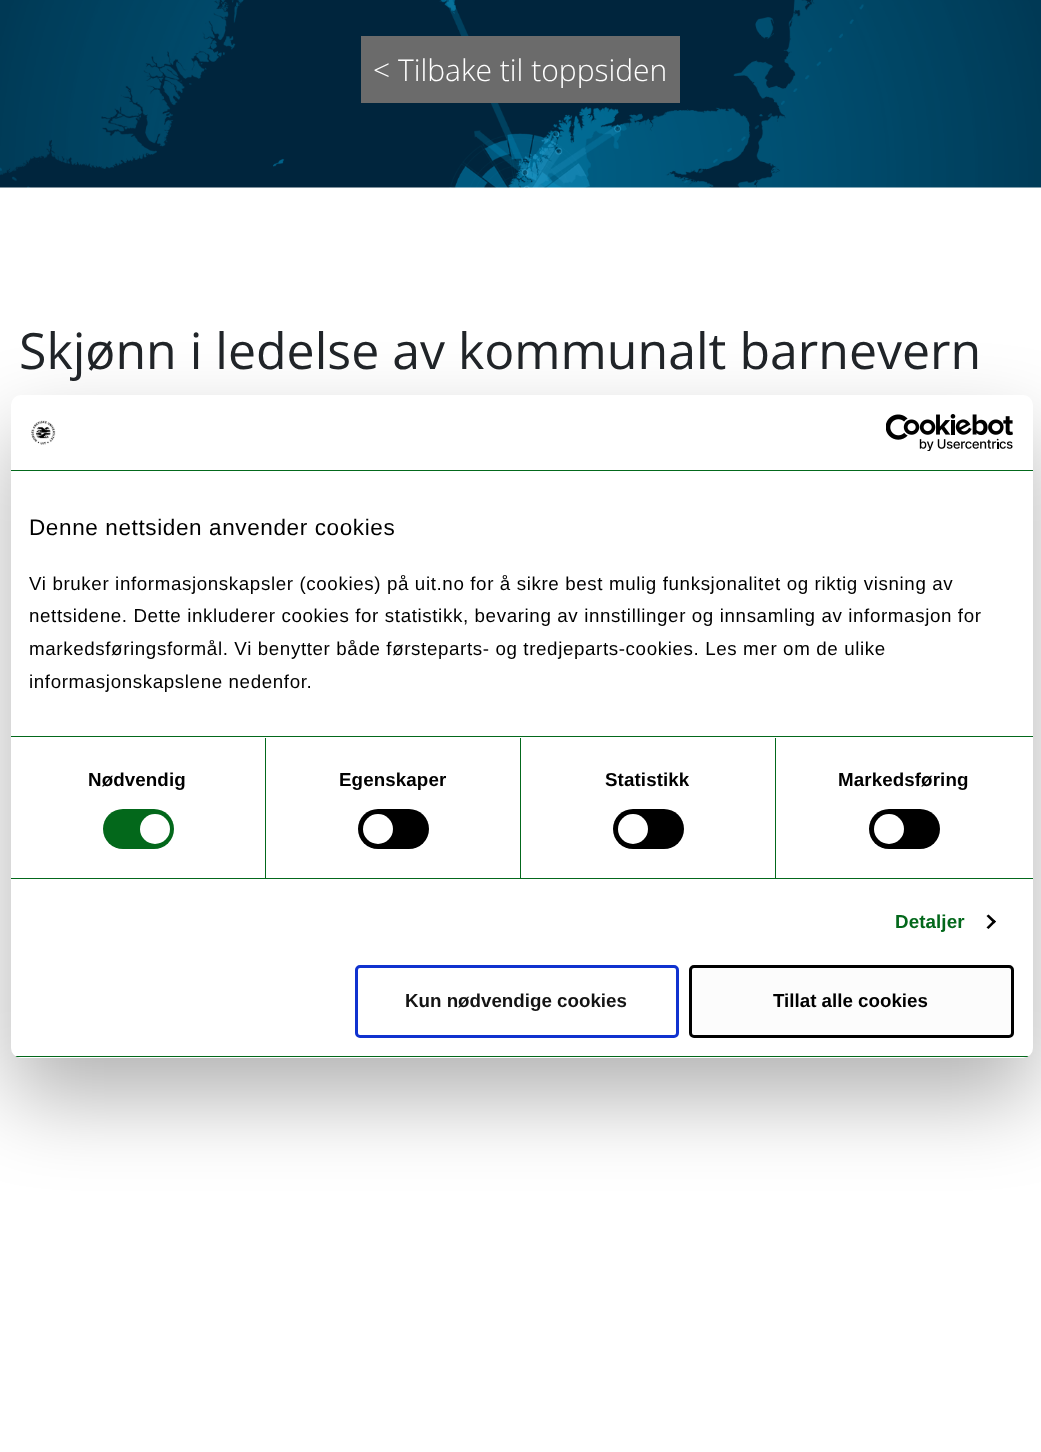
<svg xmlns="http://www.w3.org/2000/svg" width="1041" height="1452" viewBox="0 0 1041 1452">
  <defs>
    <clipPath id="clip1"><rect x="11" y="395" width="1022" height="663" rx="10"/></clipPath>
  </defs>
  <rect width="100%" height="100%" fill="rgb(255,255,255)"/>
  <image x="0" y="0" width="1041" height="188" href="pic1.png"/>
  <rect x="361" y="36" width="319" height="67" fill="rgb(107,107,107)"/>
  <text x="373" y="81" font-family="Open Sans" font-size="30" font-weight="300" fill="rgb(255,255,255)">&lt; Tilbake til toppsiden</text>
  <text x="19" y="369" font-family="Open Sans" font-size="50" fill="rgb(33,37,41)">Skjønn i ledelse av kommunalt barnevern</text>
  <rect x="11" y="435" width="1022" height="663" rx="10" fill="rgba(0,0,0,0.3)" filter="blur(42.5px)"/>
  <rect x="11" y="395" width="1022" height="663" rx="10" fill="rgb(255,255,255)"/>
  <rect x="11" y="470" width="1022" height="1" fill="rgb(3,104,27)"/>
  <image x="31" y="420" width="25" height="25" href="pic2.png"/>
  <image x="886" y="414" width="127" height="37" href="pic3.png"/>
  <rect x="11" y="736" width="1022" height="1" fill="rgb(3,104,27)"/>
  <text x="29" y="535" font-family="Liberation Sans" font-size="22.5" letter-spacing="0.62" fill="rgb(0,0,0)">Denne nettsiden anvender cookies</text>
  <g font-family="Liberation Sans" font-size="18.75" letter-spacing="0.62" fill="rgb(0,0,0)">
    <text>
      <tspan x="29" y="590">Vi bruker informasjonskapsler (cookies) på uit.no for å sikre best mulig funksjonalitet og riktig visning av</tspan>
      <tspan x="29" y="622">nettsidene. Dette inkluderer cookies for statistikk, bevaring av innstillinger og innsamling av informasjon for</tspan>
      <tspan x="29" y="655">markedsføringsformål. Vi benytter både førsteparts- og tredjeparts-cookies. Les mer om de ulike</tspan>
      <tspan x="29" y="688">informasjonskapslene nedenfor.</tspan>
    </text>
  </g>
  <rect x="11" y="878" width="1022" height="1" fill="rgb(3,104,27)"/>
  <rect x="265" y="738" width="1" height="140" fill="rgb(3,104,27)"/>
  <text x="88" y="786" font-family="Liberation Sans" font-size="18.75" font-weight="bold" letter-spacing="0.1" fill="rgb(0,0,0)">Nødvendig</text>
  <rect x="103" y="809" width="71" height="40" rx="20" fill="rgb(3,104,27)"/>
  <circle cx="155" cy="829" r="15" fill="rgb(255,255,255)"/>
  <rect x="520" y="738" width="1" height="140" fill="rgb(3,104,27)"/>
  <text x="339" y="786" font-family="Liberation Sans" font-size="18.75" font-weight="bold" letter-spacing="0.1" fill="rgb(0,0,0)">Egenskaper</text>
  <rect x="358" y="809" width="71" height="40" rx="20" fill="rgb(0,0,0)"/>
  <circle cx="378" cy="829" r="15" fill="rgb(255,255,255)"/>
  <rect x="775" y="738" width="1" height="140" fill="rgb(3,104,27)"/>
  <text x="605" y="786" font-family="Liberation Sans" font-size="18.75" font-weight="bold" letter-spacing="0.1" fill="rgb(0,0,0)">Statistikk</text>
  <rect x="613" y="809" width="71" height="40" rx="20" fill="rgb(0,0,0)"/>
  <circle cx="633" cy="829" r="15" fill="rgb(255,255,255)"/>
  <text x="838" y="786" font-family="Liberation Sans" font-size="18.75" font-weight="bold" letter-spacing="0.1" fill="rgb(0,0,0)">Markedsføring</text>
  <rect x="869" y="809" width="71" height="40" rx="20" fill="rgb(0,0,0)"/>
  <circle cx="889" cy="829" r="15" fill="rgb(255,255,255)"/>
  <text x="895" y="928" font-family="Liberation Sans" font-size="18.75" font-weight="bold" letter-spacing="0.1" fill="rgb(3,104,27)">Detaljer</text>
  <path d="M988.5 914.5L996 921.5L994 923.5L986.5 916Z" fill="rgb(0,0,0)"/>
  <path d="M994 920L996 921.5L988.5 929L986.5 927.5Z" fill="rgb(0,0,0)"/>
  <g clip-path="url(#clip1)">
    <rect x="11" y="1056" width="1022" height="1" fill="rgb(3,104,27)"/>
  </g>
  <rect x="356.5" y="966.5" width="321" height="70" rx="3.5" fill="none" stroke="rgb(16,50,207)" stroke-width="3"/>
  <text x="405" y="1007" font-family="Liberation Sans" font-size="18.75" font-weight="bold" fill="rgb(20,20,20)">Kun nødvendige cookies</text>
  <rect x="690.5" y="966.5" width="322" height="70" rx="3.5" fill="rgb(252,252,252)" stroke="rgb(0,0,0)" stroke-width="3"/>
  <text x="773" y="1007" font-family="Liberation Sans" font-size="18.75" font-weight="bold" fill="rgb(0,0,0)">Tillat alle cookies</text>
</svg>
